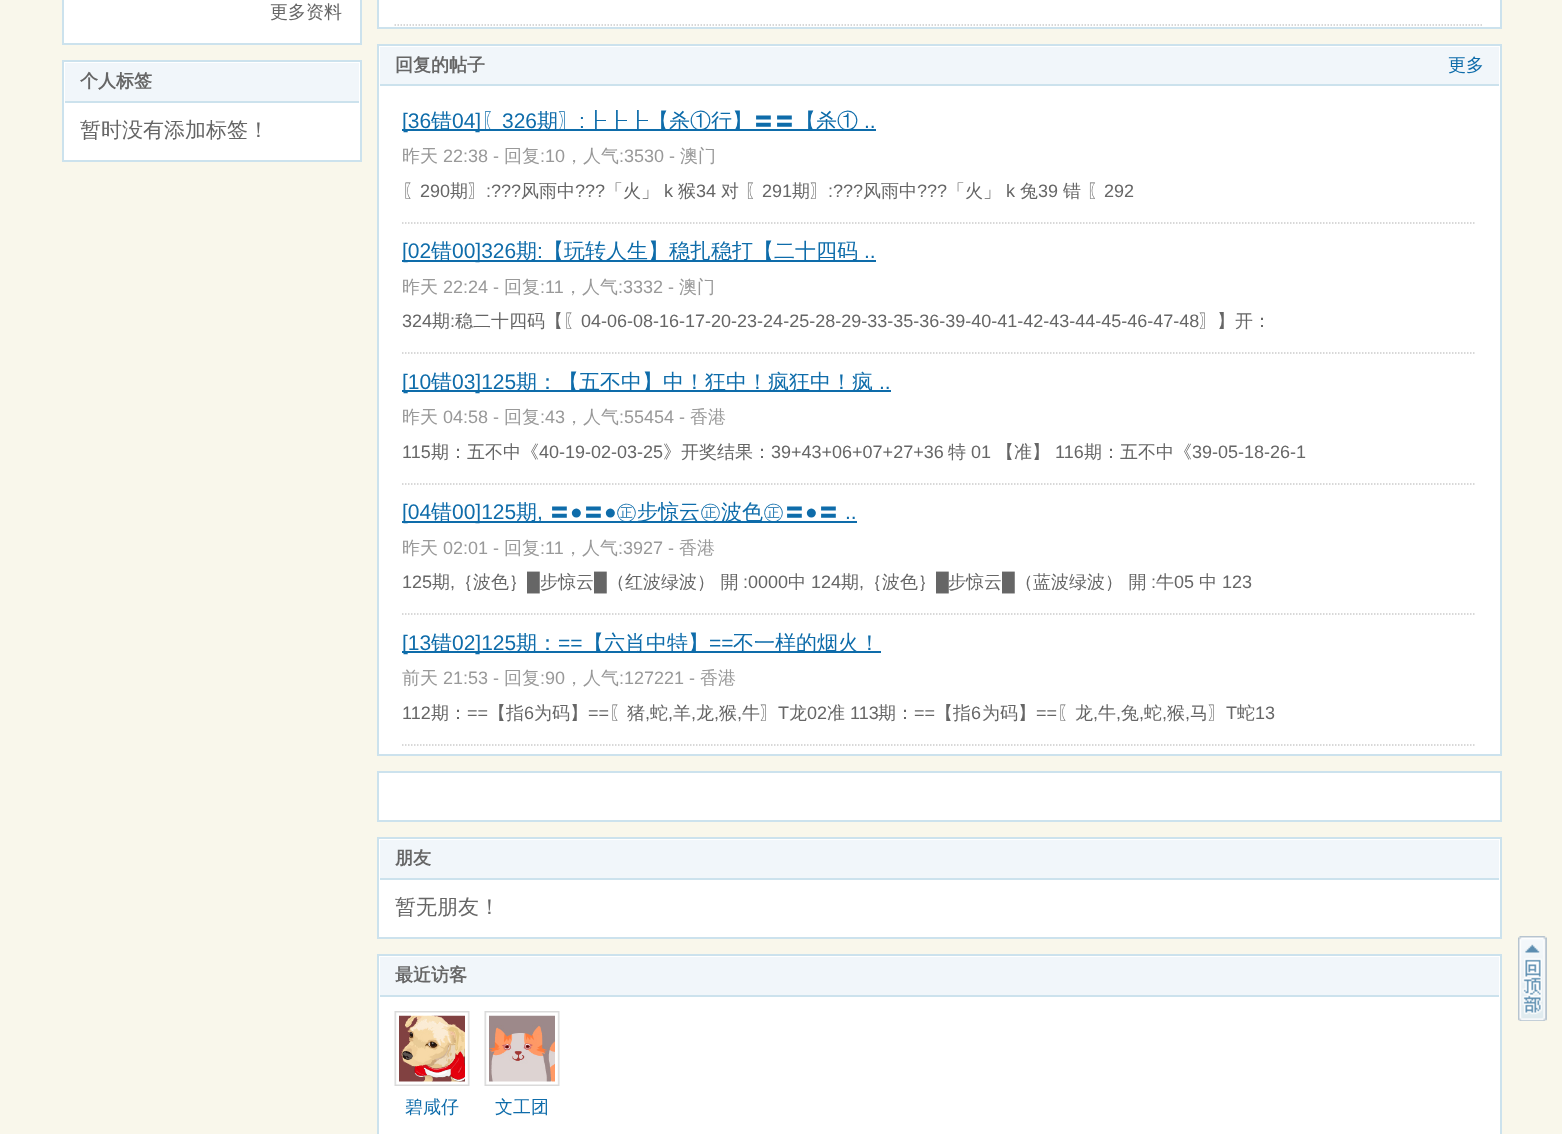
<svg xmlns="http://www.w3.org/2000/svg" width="1562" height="1134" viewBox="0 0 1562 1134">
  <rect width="100%" height="100%" fill="rgb(249,247,235)"/>
  <rect x="63" y="-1" width="298" height="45" fill="rgb(255,255,255)" stroke="rgb(204,226,237)" stroke-width="2"/>
  <text x="270" y="18" font-family="WenQuanYi Zen Hei" font-size="18" font-weight="500" fill="rgb(102,102,102)">更多资料</text>
  <rect x="63" y="61" width="298" height="100" fill="rgb(255,255,255)" stroke="rgb(204,226,237)" stroke-width="2"/>
  <rect x="65" y="63" width="294" height="38" fill="rgb(241,246,250)"/>
  <rect x="65" y="101" width="294" height="2" fill="rgb(204,226,237)"/>
  <text x="80" y="87" font-family="WenQuanYi Zen Hei" font-size="18" font-weight="bold" fill="rgb(102,102,102)">个人标签</text>
  <text x="80" y="137" font-family="WenQuanYi Zen Hei" font-size="21" font-weight="500" fill="rgb(102,102,102)">暂时没有添加标签！</text>
  <rect x="378" y="-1" width="1123" height="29" fill="rgb(255,255,255)" stroke="rgb(204,226,237)" stroke-width="2"/>
  <path d="M394.5 25H1483.5" fill="none" stroke="rgb(204,204,204)" stroke-width="1.5" stroke-dasharray="1.5 1.5"/>
  <rect x="378" y="45" width="1123" height="710" fill="rgb(255,255,255)" stroke="rgb(204,226,237)" stroke-width="2"/>
  <rect x="380" y="47" width="1119" height="37" fill="rgb(241,246,250)"/>
  <rect x="380" y="84" width="1119" height="2" fill="rgb(204,226,237)"/>
  <text x="395" y="71" font-family="WenQuanYi Zen Hei" font-size="18" font-weight="bold" fill="rgb(102,102,102)">回复的帖子</text>
  <text x="1448" y="71" font-family="WenQuanYi Zen Hei" font-size="18" font-weight="500" fill="rgb(14,108,170)">更多</text>
  <path d="M402 223H1476" fill="none" stroke="rgb(204,204,204)" stroke-width="1.5" stroke-dasharray="1.5 1.5"/>
  <rect x="402" y="129" width="474" height="2" fill="rgb(14,108,170)"/>
  <text x="402" y="128" font-family="Liberation Sans" font-size="21" fill="rgb(14,108,170)">[36</text>
  <text x="431" y="128" font-family="WenQuanYi Zen Hei" font-size="21" font-weight="500" fill="rgb(14,108,170)">错</text>
  <text x="452" y="128" font-family="Liberation Sans" font-size="21" fill="rgb(14,108,170)">04]</text>
  <text x="481" y="128" font-family="WenQuanYi Zen Hei" font-size="21" font-weight="500" fill="rgb(14,108,170)">〖</text>
  <text x="502" y="128" font-family="Liberation Sans" font-size="21" fill="rgb(14,108,170)">326</text>
  <text x="537" y="128" font-family="WenQuanYi Zen Hei" font-size="21" font-weight="500" fill="rgb(14,108,170)">期〗</text>
  <text x="579" y="128" font-family="Liberation Sans" font-size="21" fill="rgb(14,108,170)">:</text>
  <text x="585" y="128" font-family="WenQuanYi Zen Hei" font-size="21" font-weight="500" fill="rgb(14,108,170)">┠┠┠【杀①行】〓〓【杀①</text>
  <text x="864" y="128" font-family="Liberation Sans" font-size="21" fill="rgb(14,108,170)">..</text>
  <text x="402" y="162" font-family="WenQuanYi Zen Hei" font-size="18" font-weight="500" fill="rgb(153,153,153)">昨天</text>
  <text x="443" y="162" font-family="Liberation Sans" font-size="18" fill="rgb(153,153,153)">22:38 -</text>
  <text x="504" y="162" font-family="WenQuanYi Zen Hei" font-size="18" font-weight="500" fill="rgb(153,153,153)">回复</text>
  <text x="540" y="162" font-family="Liberation Sans" font-size="18" fill="rgb(153,153,153)">:10</text>
  <text x="565" y="162" font-family="WenQuanYi Zen Hei" font-size="18" font-weight="500" fill="rgb(153,153,153)">，人气</text>
  <text x="619" y="162" font-family="Liberation Sans" font-size="18" fill="rgb(153,153,153)">:3530 -</text>
  <text x="680" y="162" font-family="WenQuanYi Zen Hei" font-size="18" font-weight="500" fill="rgb(153,153,153)">澳门</text>
  <text x="402" y="197" font-family="WenQuanYi Zen Hei" font-size="18" font-weight="500" fill="rgb(102,102,102)">〖</text>
  <text x="420" y="197" font-family="Liberation Sans" font-size="18" fill="rgb(102,102,102)">290</text>
  <text x="450" y="197" font-family="WenQuanYi Zen Hei" font-size="18" font-weight="500" fill="rgb(102,102,102)">期〗</text>
  <text x="486" y="197" font-family="Liberation Sans" font-size="18" fill="rgb(102,102,102)">:???</text>
  <text x="521" y="197" font-family="WenQuanYi Zen Hei" font-size="18" font-weight="500" fill="rgb(102,102,102)">风雨中</text>
  <text x="575" y="197" font-family="Liberation Sans" font-size="18" fill="rgb(102,102,102)">???</text>
  <text x="605" y="197" font-family="WenQuanYi Zen Hei" font-size="18" font-weight="500" fill="rgb(102,102,102)">「火」</text>
  <text x="664" y="197" font-family="Liberation Sans" font-size="18" fill="rgb(102,102,102)">k</text>
  <text x="678" y="197" font-family="WenQuanYi Zen Hei" font-size="18" font-weight="500" fill="rgb(102,102,102)">猴</text>
  <text x="696" y="197" font-family="Liberation Sans" font-size="18" fill="rgb(102,102,102)">34</text>
  <text x="721" y="197" font-family="WenQuanYi Zen Hei" font-size="18" font-weight="500" fill="rgb(102,102,102)">对 〖</text>
  <text x="762" y="197" font-family="Liberation Sans" font-size="18" fill="rgb(102,102,102)">291</text>
  <text x="792" y="197" font-family="WenQuanYi Zen Hei" font-size="18" font-weight="500" fill="rgb(102,102,102)">期〗</text>
  <text x="828" y="197" font-family="Liberation Sans" font-size="18" fill="rgb(102,102,102)">:???</text>
  <text x="863" y="197" font-family="WenQuanYi Zen Hei" font-size="18" font-weight="500" fill="rgb(102,102,102)">风雨中</text>
  <text x="917" y="197" font-family="Liberation Sans" font-size="18" fill="rgb(102,102,102)">???</text>
  <text x="947" y="197" font-family="WenQuanYi Zen Hei" font-size="18" font-weight="500" fill="rgb(102,102,102)">「火」</text>
  <text x="1006" y="197" font-family="Liberation Sans" font-size="18" fill="rgb(102,102,102)">k</text>
  <text x="1020" y="197" font-family="WenQuanYi Zen Hei" font-size="18" font-weight="500" fill="rgb(102,102,102)">兔</text>
  <text x="1038" y="197" font-family="Liberation Sans" font-size="18" fill="rgb(102,102,102)">39</text>
  <text x="1063" y="197" font-family="WenQuanYi Zen Hei" font-size="18" font-weight="500" fill="rgb(102,102,102)">错 〖</text>
  <text x="1104" y="197" font-family="Liberation Sans" font-size="18" fill="rgb(102,102,102)">292</text>
  <path d="M402 353H1476" fill="none" stroke="rgb(204,204,204)" stroke-width="1.5" stroke-dasharray="1.5 1.5"/>
  <rect x="402" y="260" width="474" height="2" fill="rgb(14,108,170)"/>
  <text x="402" y="258" font-family="Liberation Sans" font-size="21" fill="rgb(14,108,170)">[02</text>
  <text x="431" y="258" font-family="WenQuanYi Zen Hei" font-size="21" font-weight="500" fill="rgb(14,108,170)">错</text>
  <text x="452" y="258" font-family="Liberation Sans" font-size="21" fill="rgb(14,108,170)">00]326</text>
  <text x="516" y="258" font-family="WenQuanYi Zen Hei" font-size="21" font-weight="500" fill="rgb(14,108,170)">期</text>
  <text x="537" y="258" font-family="Liberation Sans" font-size="21" fill="rgb(14,108,170)">:</text>
  <text x="543" y="258" font-family="WenQuanYi Zen Hei" font-size="21" font-weight="500" fill="rgb(14,108,170)">【玩转人生】稳扎稳打【二十四码</text>
  <text x="864" y="258" font-family="Liberation Sans" font-size="21" fill="rgb(14,108,170)">..</text>
  <text x="402" y="293" font-family="WenQuanYi Zen Hei" font-size="18" font-weight="500" fill="rgb(153,153,153)">昨天</text>
  <text x="443" y="293" font-family="Liberation Sans" font-size="18" fill="rgb(153,153,153)">22:24 -</text>
  <text x="504" y="293" font-family="WenQuanYi Zen Hei" font-size="18" font-weight="500" fill="rgb(153,153,153)">回复</text>
  <text x="540" y="293" font-family="Liberation Sans" font-size="18" fill="rgb(153,153,153)">:11</text>
  <text x="564" y="293" font-family="WenQuanYi Zen Hei" font-size="18" font-weight="500" fill="rgb(153,153,153)">，人气</text>
  <text x="618" y="293" font-family="Liberation Sans" font-size="18" fill="rgb(153,153,153)">:3332 -</text>
  <text x="679" y="293" font-family="WenQuanYi Zen Hei" font-size="18" font-weight="500" fill="rgb(153,153,153)">澳门</text>
  <text x="402" y="327" font-family="Liberation Sans" font-size="18" fill="rgb(102,102,102)">324</text>
  <text x="432" y="327" font-family="WenQuanYi Zen Hei" font-size="18" font-weight="500" fill="rgb(102,102,102)">期</text>
  <text x="450" y="327" font-family="Liberation Sans" font-size="18" fill="rgb(102,102,102)">:</text>
  <text x="455" y="327" font-family="WenQuanYi Zen Hei" font-size="18" font-weight="500" fill="rgb(102,102,102)">稳二十四码【〖</text>
  <text x="581" y="327" font-family="Liberation Sans" font-size="18" fill="rgb(102,102,102)">04-06-08-16-17-20-23-24-25-28-29-33-35-36-39-40-41-42-43-44-45-46-47-48</text>
  <text x="1199" y="327" font-family="WenQuanYi Zen Hei" font-size="18" font-weight="500" fill="rgb(102,102,102)">〗】开：</text>
  <path d="M402 484H1476" fill="none" stroke="rgb(204,204,204)" stroke-width="1.5" stroke-dasharray="1.5 1.5"/>
  <rect x="402" y="390" width="489" height="2" fill="rgb(14,108,170)"/>
  <text x="402" y="389" font-family="Liberation Sans" font-size="21" fill="rgb(14,108,170)">[10</text>
  <text x="431" y="389" font-family="WenQuanYi Zen Hei" font-size="21" font-weight="500" fill="rgb(14,108,170)">错</text>
  <text x="452" y="389" font-family="Liberation Sans" font-size="21" fill="rgb(14,108,170)">03]125</text>
  <text x="516" y="389" font-family="WenQuanYi Zen Hei" font-size="21" font-weight="500" fill="rgb(14,108,170)">期：【五不中】中！狂中！疯狂中！疯</text>
  <text x="879" y="389" font-family="Liberation Sans" font-size="21" fill="rgb(14,108,170)">..</text>
  <text x="402" y="423" font-family="WenQuanYi Zen Hei" font-size="18" font-weight="500" fill="rgb(153,153,153)">昨天</text>
  <text x="443" y="423" font-family="Liberation Sans" font-size="18" fill="rgb(153,153,153)">04:58 -</text>
  <text x="504" y="423" font-family="WenQuanYi Zen Hei" font-size="18" font-weight="500" fill="rgb(153,153,153)">回复</text>
  <text x="540" y="423" font-family="Liberation Sans" font-size="18" fill="rgb(153,153,153)">:43</text>
  <text x="565" y="423" font-family="WenQuanYi Zen Hei" font-size="18" font-weight="500" fill="rgb(153,153,153)">，人气</text>
  <text x="619" y="423" font-family="Liberation Sans" font-size="18" fill="rgb(153,153,153)">:55454 -</text>
  <text x="690" y="423" font-family="WenQuanYi Zen Hei" font-size="18" font-weight="500" fill="rgb(153,153,153)">香港</text>
  <text x="402" y="458" font-family="Liberation Sans" font-size="18" fill="rgb(102,102,102)">115</text>
  <text x="431" y="458" font-family="WenQuanYi Zen Hei" font-size="18" font-weight="500" fill="rgb(102,102,102)">期：五不中《</text>
  <text x="539" y="458" font-family="Liberation Sans" font-size="18" fill="rgb(102,102,102)">40-19-02-03-25</text>
  <text x="663" y="458" font-family="WenQuanYi Zen Hei" font-size="18" font-weight="500" fill="rgb(102,102,102)">》开奖结果：</text>
  <text x="771" y="458" font-family="Liberation Sans" font-size="18" fill="rgb(102,102,102)">39+43+06+07+27+36</text>
  <text x="948" y="458" font-family="WenQuanYi Zen Hei" font-size="18" font-weight="500" fill="rgb(102,102,102)">特</text>
  <text x="971" y="458" font-family="Liberation Sans" font-size="18" fill="rgb(102,102,102)">01</text>
  <text x="996" y="458" font-family="WenQuanYi Zen Hei" font-size="18" font-weight="500" fill="rgb(102,102,102)">【准】</text>
  <text x="1055" y="458" font-family="Liberation Sans" font-size="18" fill="rgb(102,102,102)">116</text>
  <text x="1084" y="458" font-family="WenQuanYi Zen Hei" font-size="18" font-weight="500" fill="rgb(102,102,102)">期：五不中《</text>
  <text x="1192" y="458" font-family="Liberation Sans" font-size="18" fill="rgb(102,102,102)">39-05-18-26-1</text>
  <path d="M402 614H1476" fill="none" stroke="rgb(204,204,204)" stroke-width="1.5" stroke-dasharray="1.5 1.5"/>
  <rect x="402" y="521" width="455" height="2" fill="rgb(14,108,170)"/>
  <text x="402" y="519" font-family="Liberation Sans" font-size="21" fill="rgb(14,108,170)">[04</text>
  <text x="431" y="519" font-family="WenQuanYi Zen Hei" font-size="21" font-weight="500" fill="rgb(14,108,170)">错</text>
  <text x="452" y="519" font-family="Liberation Sans" font-size="21" fill="rgb(14,108,170)">00]125</text>
  <g font-family="WenQuanYi Zen Hei" font-size="21" font-weight="500" fill="rgb(14,108,170)">
    <text x="516" y="519">期</text>
    <text x="549" y="519">〓</text>
  </g>
  <text x="570" y="519" font-family="Liberation Sans" font-size="21" fill="rgb(14,108,170)">●</text>
  <text x="583" y="519" font-family="WenQuanYi Zen Hei" font-size="21" font-weight="500" fill="rgb(14,108,170)">〓</text>
  <text x="604" y="519" font-family="Liberation Sans" font-size="21" fill="rgb(14,108,170)">●</text>
  <text x="616" y="519" font-family="WenQuanYi Zen Hei" font-size="21" font-weight="500" fill="rgb(14,108,170)">㊣步惊云㊣波色㊣〓</text>
  <text x="805" y="519" font-family="Liberation Sans" font-size="21" fill="rgb(14,108,170)">●</text>
  <text x="818" y="519" font-family="WenQuanYi Zen Hei" font-size="21" font-weight="500" fill="rgb(14,108,170)">〓</text>
  <g font-family="Liberation Sans" font-size="21" fill="rgb(14,108,170)">
    <text x="537" y="519">,</text>
    <text x="845" y="519">..</text>
  </g>
  <text x="402" y="554" font-family="WenQuanYi Zen Hei" font-size="18" font-weight="500" fill="rgb(153,153,153)">昨天</text>
  <text x="443" y="554" font-family="Liberation Sans" font-size="18" fill="rgb(153,153,153)">02:01 -</text>
  <text x="504" y="554" font-family="WenQuanYi Zen Hei" font-size="18" font-weight="500" fill="rgb(153,153,153)">回复</text>
  <text x="540" y="554" font-family="Liberation Sans" font-size="18" fill="rgb(153,153,153)">:11</text>
  <text x="564" y="554" font-family="WenQuanYi Zen Hei" font-size="18" font-weight="500" fill="rgb(153,153,153)">，人气</text>
  <text x="618" y="554" font-family="Liberation Sans" font-size="18" fill="rgb(153,153,153)">:3927 -</text>
  <text x="679" y="554" font-family="WenQuanYi Zen Hei" font-size="18" font-weight="500" fill="rgb(153,153,153)">香港</text>
  <text x="402" y="588" font-family="Liberation Sans" font-size="18" fill="rgb(102,102,102)">125</text>
  <g font-family="WenQuanYi Zen Hei" font-size="18" font-weight="500" fill="rgb(102,102,102)">
    <text x="432" y="588">期</text>
    <text x="455" y="588">｛波色｝</text>
  </g>
  <text x="527" y="588" font-family="Liberation Sans" font-size="18" fill="rgb(102,102,102)">█</text>
  <text x="540" y="588" font-family="WenQuanYi Zen Hei" font-size="18" font-weight="500" fill="rgb(102,102,102)">步惊云</text>
  <text x="594" y="588" font-family="Liberation Sans" font-size="18" fill="rgb(102,102,102)">█</text>
  <text x="607" y="588" font-family="WenQuanYi Zen Hei" font-size="18" font-weight="500" fill="rgb(102,102,102)">（红波绿波） 開</text>
  <text x="743" y="588" font-family="Liberation Sans" font-size="18" fill="rgb(102,102,102)">:0000</text>
  <text x="788" y="588" font-family="WenQuanYi Zen Hei" font-size="18" font-weight="500" fill="rgb(102,102,102)">中</text>
  <text x="811" y="588" font-family="Liberation Sans" font-size="18" fill="rgb(102,102,102)">124</text>
  <g font-family="WenQuanYi Zen Hei" font-size="18" font-weight="500" fill="rgb(102,102,102)">
    <text x="841" y="588">期</text>
    <text x="864" y="588">｛波色｝</text>
  </g>
  <text x="936" y="588" font-family="Liberation Sans" font-size="18" fill="rgb(102,102,102)">█</text>
  <text x="948" y="588" font-family="WenQuanYi Zen Hei" font-size="18" font-weight="500" fill="rgb(102,102,102)">步惊云</text>
  <text x="1002" y="588" font-family="Liberation Sans" font-size="18" fill="rgb(102,102,102)">█</text>
  <text x="1015" y="588" font-family="WenQuanYi Zen Hei" font-size="18" font-weight="500" fill="rgb(102,102,102)">（蓝波绿波） 開</text>
  <text x="1151" y="588" font-family="Liberation Sans" font-size="18" fill="rgb(102,102,102)">:</text>
  <text x="1156" y="588" font-family="WenQuanYi Zen Hei" font-size="18" font-weight="500" fill="rgb(102,102,102)">牛</text>
  <text x="1174" y="588" font-family="Liberation Sans" font-size="18" fill="rgb(102,102,102)">05</text>
  <text x="1199" y="588" font-family="WenQuanYi Zen Hei" font-size="18" font-weight="500" fill="rgb(102,102,102)">中</text>
  <g font-family="Liberation Sans" font-size="18" fill="rgb(102,102,102)">
    <text x="1222" y="588">123</text>
    <text x="450" y="588">,</text>
    <text x="859" y="588">,</text>
  </g>
  <path d="M402 745H1476" fill="none" stroke="rgb(204,204,204)" stroke-width="1.5" stroke-dasharray="1.5 1.5"/>
  <rect x="402" y="651" width="479" height="2" fill="rgb(14,108,170)"/>
  <text x="402" y="650" font-family="Liberation Sans" font-size="21" fill="rgb(14,108,170)">[13</text>
  <text x="431" y="650" font-family="WenQuanYi Zen Hei" font-size="21" font-weight="500" fill="rgb(14,108,170)">错</text>
  <text x="452" y="650" font-family="Liberation Sans" font-size="21" fill="rgb(14,108,170)">02]125</text>
  <text x="516" y="650" font-family="WenQuanYi Zen Hei" font-size="21" font-weight="500" fill="rgb(14,108,170)">期：</text>
  <text x="558" y="650" font-family="Liberation Sans" font-size="21" fill="rgb(14,108,170)">==</text>
  <text x="583" y="650" font-family="WenQuanYi Zen Hei" font-size="21" font-weight="500" fill="rgb(14,108,170)">【六肖中特】</text>
  <text x="709" y="650" font-family="Liberation Sans" font-size="21" fill="rgb(14,108,170)">==</text>
  <text x="733" y="650" font-family="WenQuanYi Zen Hei" font-size="21" font-weight="500" fill="rgb(14,108,170)">不一样的烟火！</text>
  <text x="402" y="684" font-family="WenQuanYi Zen Hei" font-size="18" font-weight="500" fill="rgb(153,153,153)">前天</text>
  <text x="443" y="684" font-family="Liberation Sans" font-size="18" fill="rgb(153,153,153)">21:53 -</text>
  <text x="504" y="684" font-family="WenQuanYi Zen Hei" font-size="18" font-weight="500" fill="rgb(153,153,153)">回复</text>
  <text x="540" y="684" font-family="Liberation Sans" font-size="18" fill="rgb(153,153,153)">:90</text>
  <text x="565" y="684" font-family="WenQuanYi Zen Hei" font-size="18" font-weight="500" fill="rgb(153,153,153)">，人气</text>
  <text x="619" y="684" font-family="Liberation Sans" font-size="18" fill="rgb(153,153,153)">:127221 -</text>
  <text x="700" y="684" font-family="WenQuanYi Zen Hei" font-size="18" font-weight="500" fill="rgb(153,153,153)">香港</text>
  <text x="402" y="719" font-family="Liberation Sans" font-size="18" fill="rgb(102,102,102)">112</text>
  <text x="431" y="719" font-family="WenQuanYi Zen Hei" font-size="18" font-weight="500" fill="rgb(102,102,102)">期：</text>
  <text x="467" y="719" font-family="Liberation Sans" font-size="18" fill="rgb(102,102,102)">==</text>
  <text x="488" y="719" font-family="WenQuanYi Zen Hei" font-size="18" font-weight="500" fill="rgb(102,102,102)">【指</text>
  <text x="524" y="719" font-family="Liberation Sans" font-size="18" fill="rgb(102,102,102)">6</text>
  <text x="534" y="719" font-family="WenQuanYi Zen Hei" font-size="18" font-weight="500" fill="rgb(102,102,102)">为码】</text>
  <text x="588" y="719" font-family="Liberation Sans" font-size="18" fill="rgb(102,102,102)">==</text>
  <g font-family="WenQuanYi Zen Hei" font-size="18" font-weight="500" fill="rgb(102,102,102)">
    <text x="609" y="719">〖猪</text>
    <text x="650" y="719">蛇</text>
    <text x="673" y="719">羊</text>
    <text x="696" y="719">龙</text>
    <text x="719" y="719">猴</text>
    <text x="742" y="719">牛〗</text>
  </g>
  <text x="778" y="719" font-family="Liberation Sans" font-size="18" fill="rgb(102,102,102)">T</text>
  <text x="789" y="719" font-family="WenQuanYi Zen Hei" font-size="18" font-weight="500" fill="rgb(102,102,102)">龙</text>
  <text x="807" y="719" font-family="Liberation Sans" font-size="18" fill="rgb(102,102,102)">02</text>
  <text x="827" y="719" font-family="WenQuanYi Zen Hei" font-size="18" font-weight="500" fill="rgb(102,102,102)">准</text>
  <text x="850" y="719" font-family="Liberation Sans" font-size="18" fill="rgb(102,102,102)">113</text>
  <text x="878" y="719" font-family="WenQuanYi Zen Hei" font-size="18" font-weight="500" fill="rgb(102,102,102)">期：</text>
  <text x="914" y="719" font-family="Liberation Sans" font-size="18" fill="rgb(102,102,102)">==</text>
  <text x="935" y="719" font-family="WenQuanYi Zen Hei" font-size="18" font-weight="500" fill="rgb(102,102,102)">【指</text>
  <text x="971" y="719" font-family="Liberation Sans" font-size="18" fill="rgb(102,102,102)">6</text>
  <text x="982" y="719" font-family="WenQuanYi Zen Hei" font-size="18" font-weight="500" fill="rgb(102,102,102)">为码】</text>
  <text x="1036" y="719" font-family="Liberation Sans" font-size="18" fill="rgb(102,102,102)">==</text>
  <g font-family="WenQuanYi Zen Hei" font-size="18" font-weight="500" fill="rgb(102,102,102)">
    <text x="1057" y="719">〖龙</text>
    <text x="1098" y="719">牛</text>
    <text x="1121" y="719">兔</text>
    <text x="1144" y="719">蛇</text>
    <text x="1167" y="719">猴</text>
    <text x="1190" y="719">马〗</text>
  </g>
  <text x="1226" y="719" font-family="Liberation Sans" font-size="18" fill="rgb(102,102,102)">T</text>
  <text x="1237" y="719" font-family="WenQuanYi Zen Hei" font-size="18" font-weight="500" fill="rgb(102,102,102)">蛇</text>
  <g font-family="Liberation Sans" font-size="18" fill="rgb(102,102,102)">
    <text x="1255" y="719">13</text>
    <text x="645" y="719">,</text>
    <text x="668" y="719">,</text>
    <text x="691" y="719">,</text>
    <text x="714" y="719">,</text>
    <text x="737" y="719">,</text>
    <text x="1093" y="719">,</text>
    <text x="1116" y="719">,</text>
    <text x="1139" y="719">,</text>
    <text x="1162" y="719">,</text>
    <text x="1185" y="719">,</text>
  </g>
  <rect x="378" y="772" width="1123" height="49" fill="rgb(255,255,255)" stroke="rgb(204,226,237)" stroke-width="2"/>
  <rect x="378" y="838" width="1123" height="100" fill="rgb(255,255,255)" stroke="rgb(204,226,237)" stroke-width="2"/>
  <rect x="380" y="840" width="1119" height="38" fill="rgb(241,246,250)"/>
  <rect x="380" y="878" width="1119" height="2" fill="rgb(204,226,237)"/>
  <text x="395" y="864" font-family="WenQuanYi Zen Hei" font-size="18" font-weight="bold" fill="rgb(102,102,102)">朋友</text>
  <text x="395" y="914" font-family="WenQuanYi Zen Hei" font-size="21" font-weight="500" fill="rgb(102,102,102)">暂无朋友！</text>
  <rect x="378" y="955" width="1123" height="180" fill="rgb(255,255,255)" stroke="rgb(204,226,237)" stroke-width="2"/>
  <rect x="380" y="957" width="1119" height="38" fill="rgb(241,246,250)"/>
  <rect x="380" y="995" width="1119" height="2" fill="rgb(204,226,237)"/>
  <text x="395" y="981" font-family="WenQuanYi Zen Hei" font-size="18" font-weight="bold" fill="rgb(102,102,102)">最近访客</text>
  <image x="394" y="1011" width="76" height="75" href="pic1.png"/>
  <image x="399" y="1015" width="66" height="67" href="pic2.png"/>
  <text x="405" y="1113" font-family="WenQuanYi Zen Hei" font-size="18" font-weight="500" fill="rgb(14,108,170)">碧咸仔</text>
  <image x="484" y="1011" width="76" height="75" href="pic1.png"/>
  <image x="489" y="1015" width="66" height="67" href="pic3.png"/>
  <text x="495" y="1113" font-family="WenQuanYi Zen Hei" font-size="18" font-weight="500" fill="rgb(14,108,170)">文工团</text>
  <image x="1518" y="936" width="29" height="85" href="pic4.png"/>
</svg>
